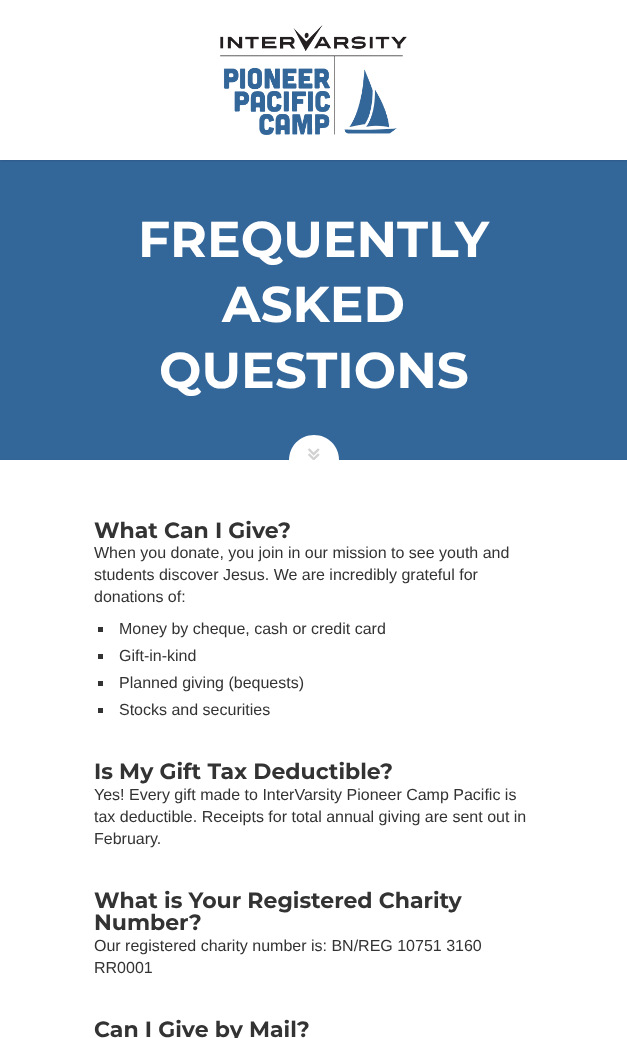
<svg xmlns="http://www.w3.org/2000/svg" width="627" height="1038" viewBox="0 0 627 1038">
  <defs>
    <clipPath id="clip1"><rect x="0" y="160" width="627" height="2"/></clipPath>
  </defs>
  <rect width="100%" height="100%" fill="rgb(255,255,255)"/>
  <rect x="0" y="160" width="627" height="300" fill="rgb(51,102,153)"/>
  <g clip-path="url(#clip1)">
    <rect x="0" y="1" width="627" height="160" fill="rgba(0,0,0,0.11)" filter="blur(1.5px)"/>
  </g>
  <image x="220" y="25" width="187" height="110" href="pic1.png"/>
  <g font-family="Montserrat" font-size="50.25" font-weight="bold" fill="rgb(255,255,255)">
    <text x="138" y="257">FREQUENTLY</text>
    <text x="222" y="322">ASKED</text>
    <text x="159" y="388">QUESTIONS</text>
  </g>
  <path d="M314 435C328 435 339 446 339 460H289C289 446 300 435 314 435Z" fill="rgb(255,255,255)"/>
  <image x="308" y="448" width="12" height="12" href="pic2.png"/>
  <text x="94" y="538" font-family="Montserrat" font-size="22" font-weight="bold" fill="rgb(51,51,51)">What Can I Give?</text>
  <g font-family="Liberation Sans" font-size="16" fill="rgb(51,51,51)">
    <text>
      <tspan x="94" y="558">When you donate, you join in our mission to see youth and</tspan>
      <tspan x="94" y="580">students discover Jesus. We are incredibly grateful for</tspan>
      <tspan x="94" y="602">donations of:</tspan>
    </text>
  </g>
  <rect x="98" y="627" width="5" height="5" fill="rgb(51,51,51)"/>
  <text x="119" y="634" font-family="Liberation Sans" font-size="16" fill="rgb(51,51,51)">Money by cheque, cash or credit card</text>
  <rect x="98" y="654" width="5" height="5" fill="rgb(51,51,51)"/>
  <text x="119" y="661" font-family="Liberation Sans" font-size="16" fill="rgb(51,51,51)">Gift-in-kind</text>
  <rect x="98" y="681" width="5" height="5" fill="rgb(51,51,51)"/>
  <text x="119" y="688" font-family="Liberation Sans" font-size="16" fill="rgb(51,51,51)">Planned giving (bequests)</text>
  <rect x="98" y="708" width="5" height="5" fill="rgb(51,51,51)"/>
  <text x="119" y="715" font-family="Liberation Sans" font-size="16" fill="rgb(51,51,51)">Stocks and securities</text>
  <text x="94" y="779" font-family="Montserrat" font-size="22" font-weight="bold" fill="rgb(51,51,51)">Is My Gift Tax Deductible?</text>
  <g font-family="Liberation Sans" font-size="16" fill="rgb(51,51,51)">
    <text>
      <tspan x="94" y="800">Yes! Every gift made to InterVarsity Pioneer Camp Pacific is</tspan>
      <tspan x="94" y="822">tax deductible. Receipts for total annual giving are sent out in</tspan>
      <tspan x="94" y="844">February.</tspan>
    </text>
  </g>
  <g font-family="Montserrat" font-size="22" font-weight="bold" fill="rgb(51,51,51)">
    <text>
      <tspan x="94" y="908">What is Your Registered Charity</tspan>
      <tspan x="94" y="930">Number?</tspan>
    </text>
  </g>
  <g font-family="Liberation Sans" font-size="16" fill="rgb(51,51,51)">
    <text>
      <tspan x="94" y="951">Our registered charity number is: BN/REG 10751 3160</tspan>
      <tspan x="94" y="973">RR0001</tspan>
    </text>
  </g>
  <text x="94" y="1037" font-family="Montserrat" font-size="22" font-weight="bold" fill="rgb(51,51,51)">Can I Give by Mail?</text>
</svg>
